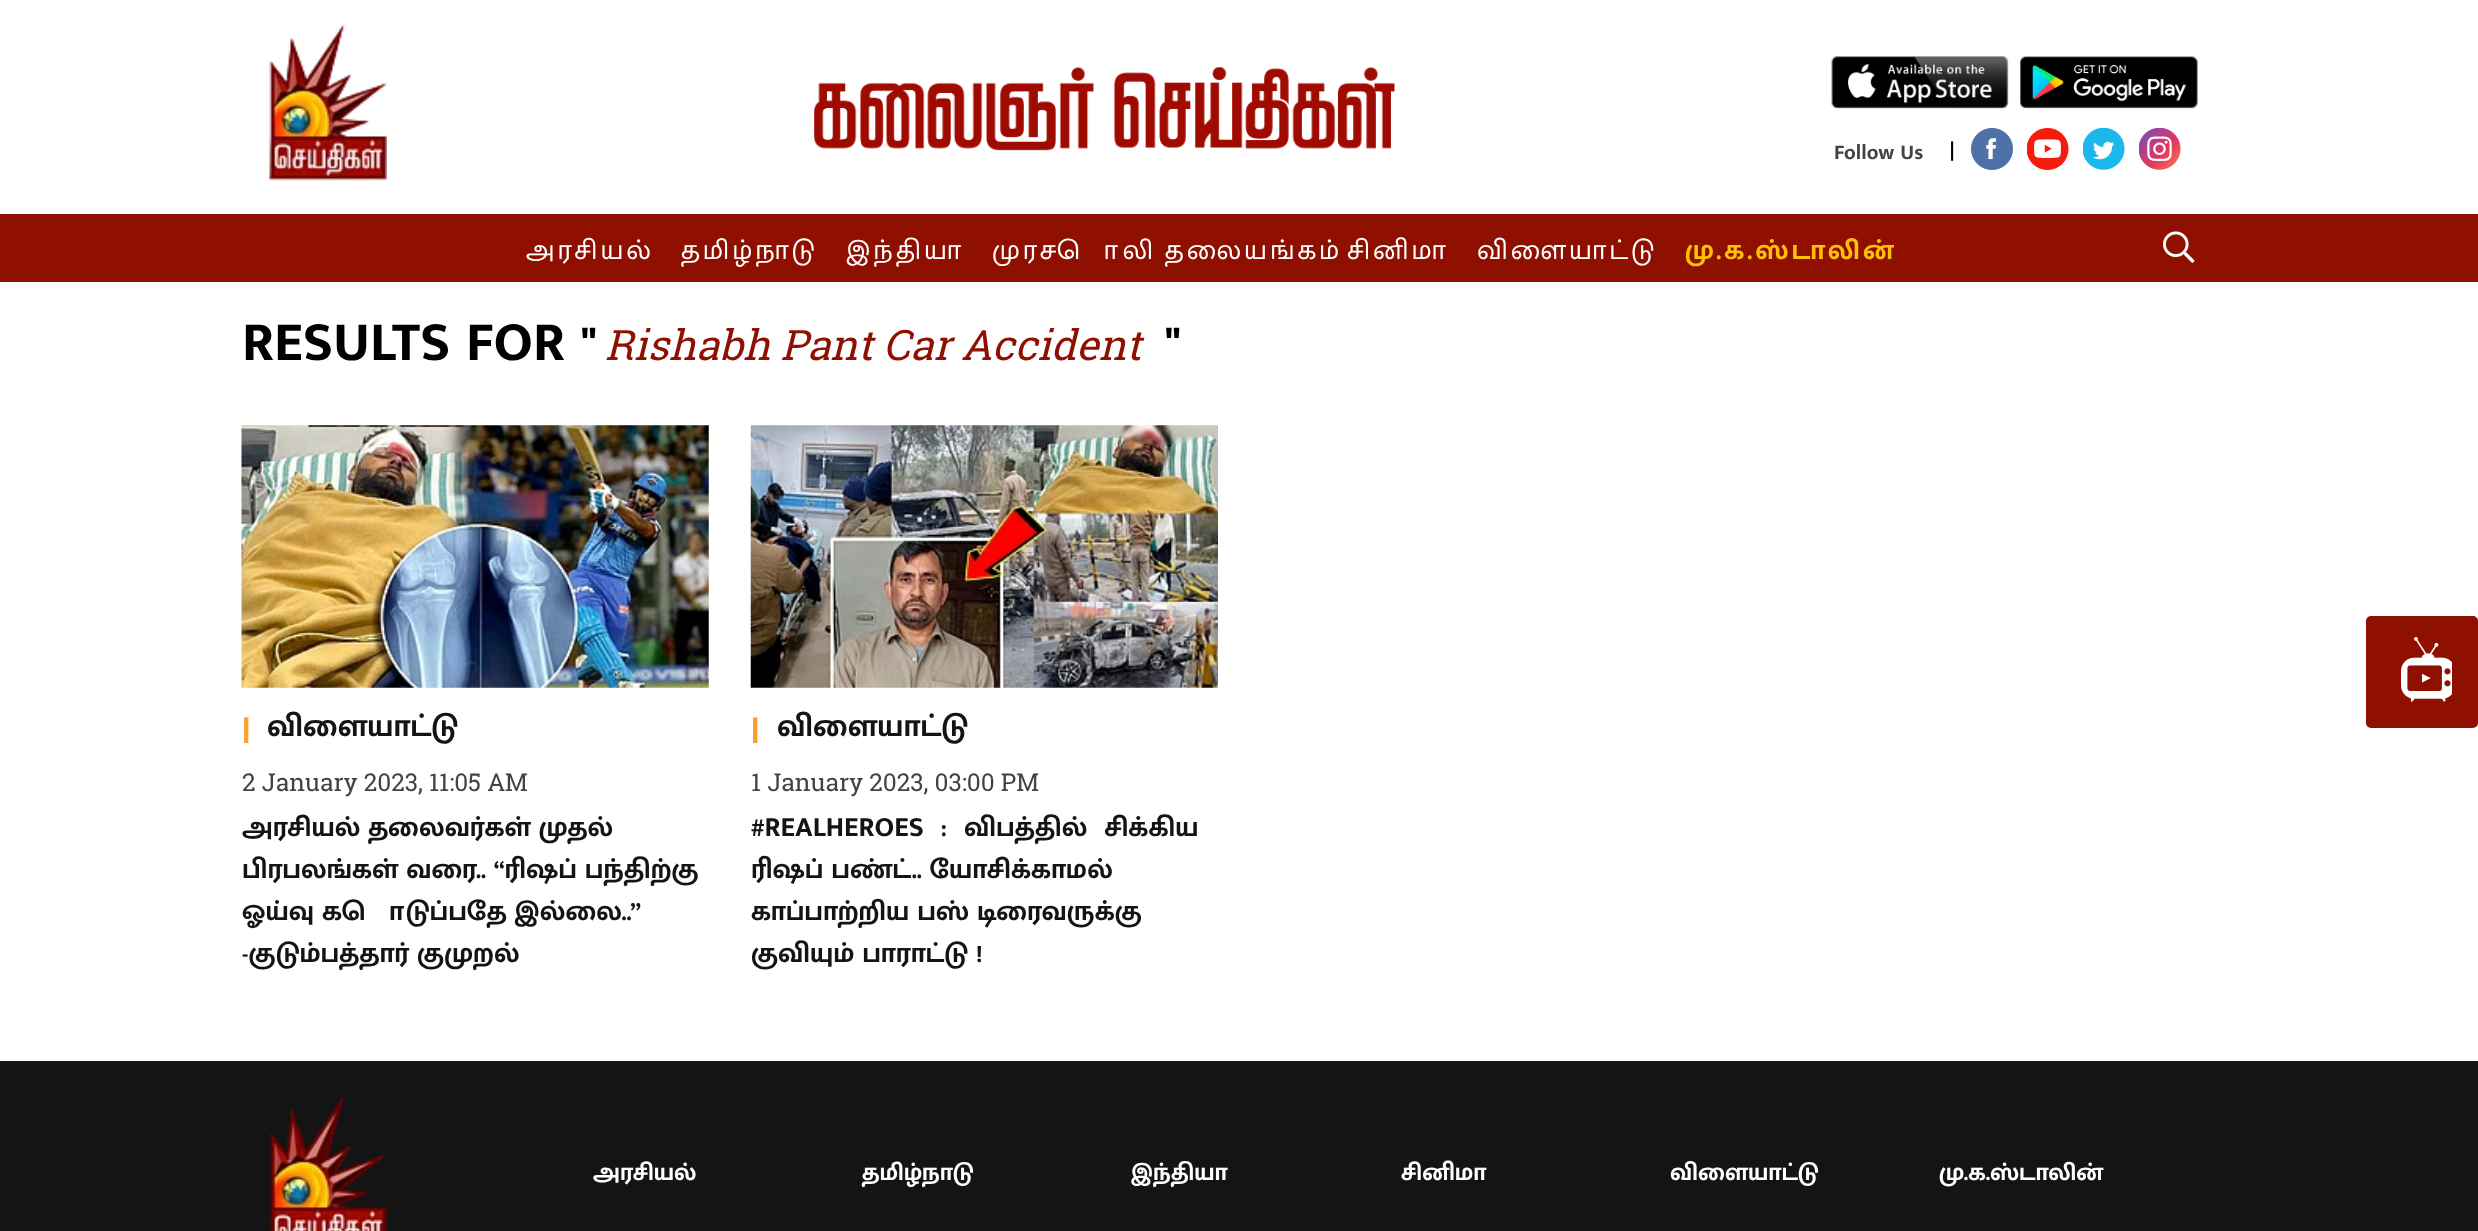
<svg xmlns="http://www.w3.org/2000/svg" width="2478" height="1231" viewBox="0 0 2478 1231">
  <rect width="100%" height="100%" fill="rgb(255,255,255)"/>
  <image x="269" y="24" width="118" height="157" href="pic1.png"/>
  <image x="814" y="67" width="581" height="84" href="pic2.png"/>
  <image x="1831" y="56" width="178" height="53" href="pic3.png"/>
  <image x="2020" y="56" width="178" height="53" href="pic4.png"/>
  <text x="1834" y="159" font-family="Mukta Malar" font-size="21" font-weight="bold" fill="rgb(67,67,67)">Follow Us</text>
  <text x="1949" y="158" font-family="Mukta Malar" font-size="28" fill="rgb(0,0,0)">|</text>
  <image x="1971" y="128" width="42" height="42" href="pic5.png"/>
  <image x="2027" y="128" width="42" height="42" href="pic6.png"/>
  <image x="2083" y="128" width="42" height="42" href="pic7.png"/>
  <image x="2139" y="128" width="42" height="42" href="pic8.png"/>
  <rect x="0" y="214" width="2478" height="68" fill="rgb(143,15,1)"/>
  <g font-family="Mukta Malar" font-size="28" letter-spacing="3" fill="rgb(255,255,255)">
    <text x="526" y="259">அரசியல்</text>
    <text x="681" y="259">தமிழ்நாடு</text>
    <text x="846" y="259">இந்தியா</text>
    <text x="992" y="259" word-spacing="-2">முரசொலி தலையங்கம்</text>
    <text x="1347" y="259">சினிமா</text>
    <text x="1477" y="259">விளையாட்டு</text>
  </g>
  <text x="1685" y="259" font-family="Mukta Malar" font-size="28" font-weight="bold" letter-spacing="3" fill="rgb(255,192,7)">மு.க.ஸ்டாலின்</text>
  <image x="2163" y="231" width="32" height="32" href="pic9.png"/>
  <text x="242" y="360" font-family="Mukta Malar" font-size="56" font-weight="bold" fill="rgb(0,0,0)">RESULTS FOR "</text>
  <text x="605" y="360" font-family="Roboto Slab" font-size="42" font-style="italic" fill="rgb(143,15,1)">Rishabh Pant Car Accident</text>
  <text x="1165" y="360" font-family="Mukta Malar" font-size="56" font-weight="bold" fill="rgb(0,0,0)">"</text>
  <image x="241" y="425" width="468" height="263" href="pic10.png"/>
  <text x="242" y="739" font-family="Mukta Malar" font-size="35" font-weight="bold" fill="rgb(250,160,47)">|</text>
  <text x="267" y="736" font-family="Mukta Malar" font-size="31.5" font-weight="bold" fill="rgb(20,20,20)">விளையாட்டு</text>
  <text x="242" y="791" font-family="Roboto Slab" font-size="24.5" fill="rgb(67,67,67)">2 January 2023, 11:05 AM</text>
  <g font-family="Mukta Malar" font-size="28" font-weight="bold" fill="rgb(20,20,20)">
    <text>
      <tspan x="242" y="836">அரசியல் தலைவர்கள் முதல்</tspan>
      <tspan x="242" y="878">பிரபலங்கள் வரை.. “ரிஷப் பந்திற்கு</tspan>
      <tspan x="242" y="920">ஓய்வு கொடுப்பதே இல்லை..”</tspan>
      <tspan x="242" y="962">-குடும்பத்தார் குமுறல்</tspan>
    </text>
  </g>
  <image x="750" y="425" width="468" height="263" href="pic11.png"/>
  <text x="751" y="739" font-family="Mukta Malar" font-size="35" font-weight="bold" fill="rgb(250,160,47)">|</text>
  <text x="777" y="736" font-family="Mukta Malar" font-size="31.5" font-weight="bold" fill="rgb(20,20,20)">விளையாட்டு</text>
  <text x="751" y="791" font-family="Roboto Slab" font-size="24.5" fill="rgb(67,67,67)">1 January 2023, 03:00 PM</text>
  <g font-family="Mukta Malar" font-size="28" font-weight="bold" fill="rgb(20,20,20)">
    <text>
      <tspan x="751" y="836" word-spacing="9">#REALHEROES : விபத்தில் சிக்கிய</tspan>
      <tspan x="751" y="878">ரிஷப் பண்ட்.. யோசிக்காமல்</tspan>
      <tspan x="751" y="920">காப்பாற்றிய பஸ் டிரைவருக்கு</tspan>
      <tspan x="751" y="962">குவியும் பாராட்டு !</tspan>
    </text>
  </g>
  <rect x="2366" y="616" width="112" height="112" rx="5" fill="rgb(143,15,1)"/>
  <image x="2401" y="637" width="51" height="65" href="pic12.png"/>
  <rect x="0" y="1061" width="2478" height="170" fill="rgb(20,20,20)"/>
  <image x="269" y="1095" width="118" height="136" href="pic13.png"/>
  <g font-family="Mukta Malar" font-size="24.5" font-weight="bold" fill="rgb(255,255,255)">
    <text x="593" y="1180">அரசியல்</text>
    <text x="862" y="1180">தமிழ்நாடு</text>
    <text x="1131" y="1180">இந்தியா</text>
    <text x="1401" y="1180">சினிமா</text>
    <text x="1670" y="1180">விளையாட்டு</text>
    <text x="1939" y="1180">மு.க.ஸ்டாலின்</text>
  </g>
</svg>
